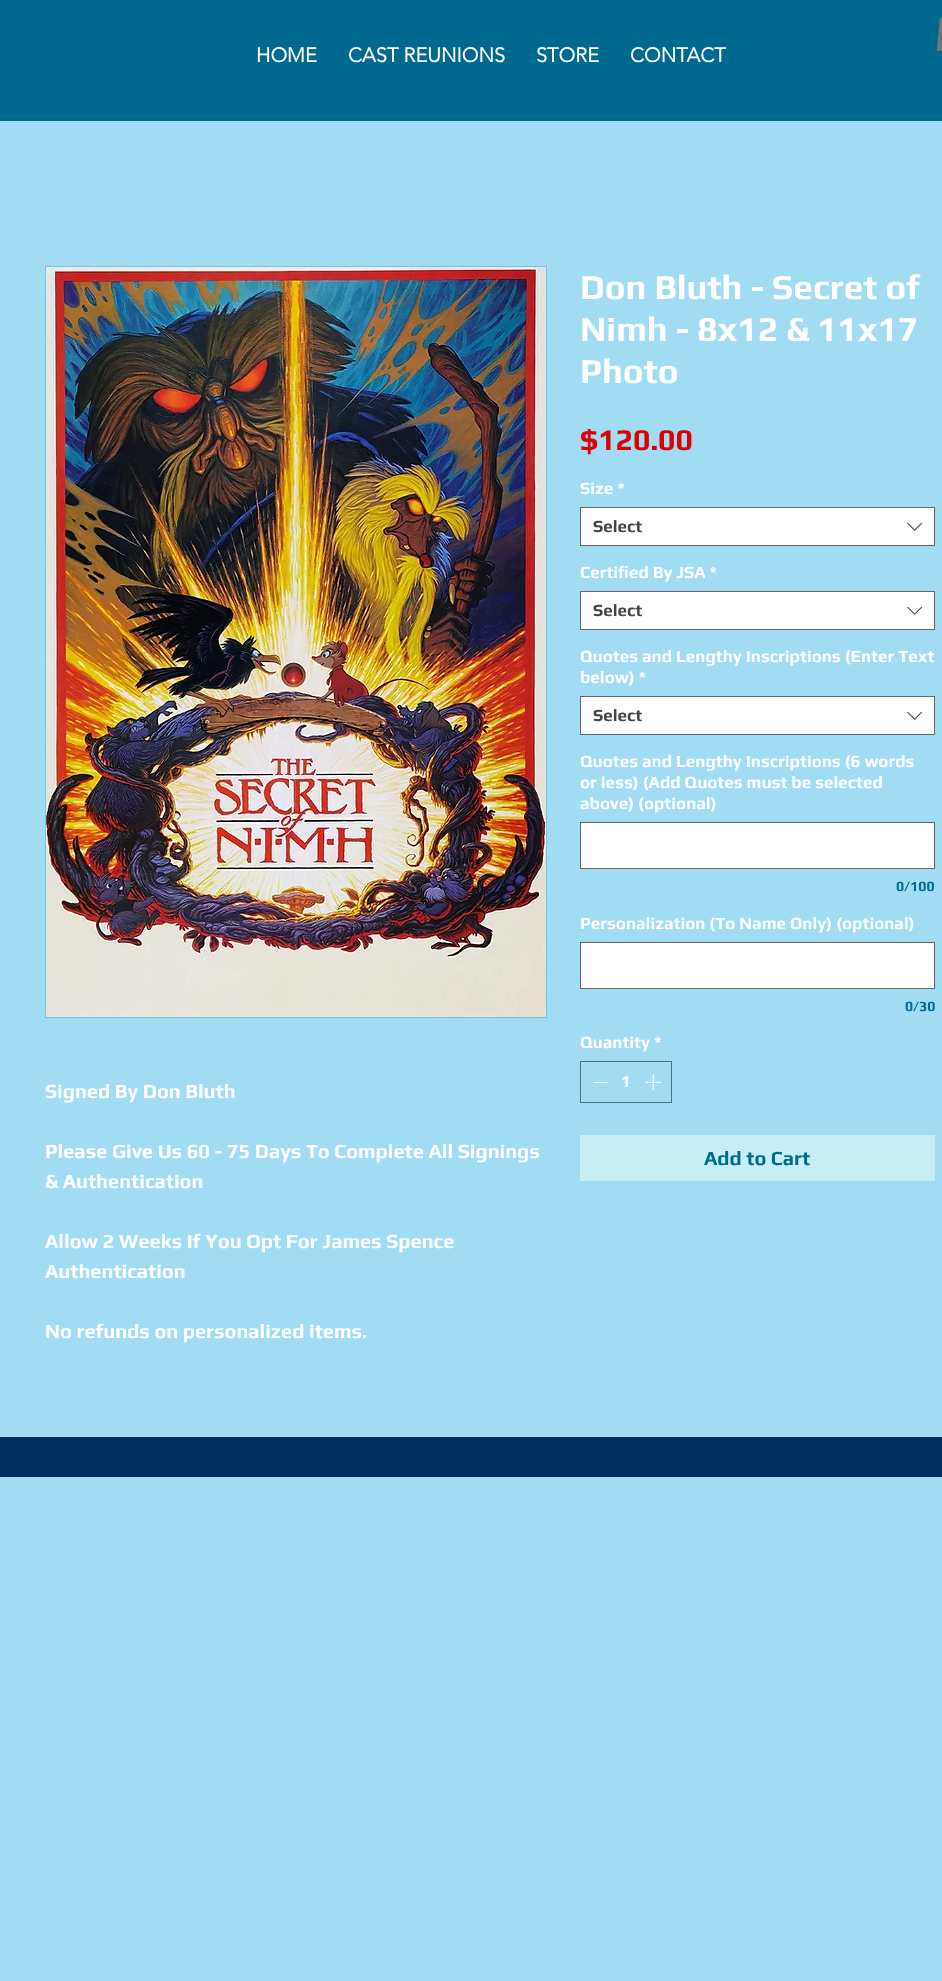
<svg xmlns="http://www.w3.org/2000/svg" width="942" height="1981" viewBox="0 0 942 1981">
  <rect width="100%" height="100%" fill="rgb(161,220,242)"/>
  <rect x="0" y="0" width="942" height="121" fill="rgb(0,105,144)"/>
  <image x="936" y="17" width="6" height="34" href="pic1.png"/>
  <g font-family="'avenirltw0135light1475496'" font-size="20" font-weight="bold" fill="rgb(255,255,255)">
    <text x="256" y="62">HOME</text>
    <text x="348" y="62">CAST REUNIONS</text>
    <text x="536" y="62">STORE</text>
    <text x="630" y="62">CONTACT</text>
  </g>
  <g font-family="Play" font-size="35" font-weight="bold" fill="rgb(255,255,255)">
    <text>
      <tspan x="580" y="299">Don Bluth - Secret of</tspan>
      <tspan x="580" y="341">Nimh - 8x12 &amp; 11x17</tspan>
      <tspan x="580" y="383">Photo</tspan>
    </text>
  </g>
  <text x="580" y="450" font-family="Play" font-size="30" font-weight="bold" fill="rgb(219,2,2)">$120.00</text>
  <text x="580" y="494" font-family="Play" font-size="17" font-weight="bold" fill="rgb(255,255,255)">Size *</text>
  <rect x="580.5" y="507.5" width="354" height="38" fill="rgb(255,255,255)" stroke="rgb(102,102,102)"/>
  <text x="593" y="532" font-family="Play" font-size="17" font-weight="bold" fill="rgb(68,68,68)">Select</text>
  <image x="907" y="522" width="16" height="9" href="pic2.png"/>
  <text x="580" y="578" font-family="Play" font-size="17" font-weight="bold" fill="rgb(255,255,255)">Certified By JSA *</text>
  <rect x="580.5" y="591.5" width="354" height="38" fill="rgb(255,255,255)" stroke="rgb(102,102,102)"/>
  <text x="593" y="616" font-family="Play" font-size="17" font-weight="bold" fill="rgb(68,68,68)">Select</text>
  <image x="907" y="606" width="16" height="9" href="pic2.png"/>
  <g font-family="Play" font-size="17" font-weight="bold" fill="rgb(255,255,255)">
    <text>
      <tspan x="580" y="662">Quotes and Lengthy Inscriptions (Enter Text</tspan>
      <tspan x="580" y="683">below) *</tspan>
    </text>
  </g>
  <rect x="580.5" y="696.5" width="354" height="38" fill="rgb(255,255,255)" stroke="rgb(102,102,102)"/>
  <text x="593" y="721" font-family="Play" font-size="17" font-weight="bold" fill="rgb(68,68,68)">Select</text>
  <image x="907" y="711" width="16" height="9" href="pic2.png"/>
  <g font-family="Play" font-size="17" font-weight="bold" fill="rgb(255,255,255)">
    <text>
      <tspan x="580" y="767">Quotes and Lengthy Inscriptions (6 words</tspan>
      <tspan x="580" y="788">or less) (Add Quotes must be selected</tspan>
      <tspan x="580" y="809">above) (optional)</tspan>
    </text>
  </g>
  <rect x="580.5" y="822.5" width="354" height="46" fill="rgb(255,255,255)" stroke="rgb(102,102,102)"/>
  <text x="896" y="891" font-family="Play" font-size="14" font-weight="bold" fill="rgb(0,105,144)">0/100</text>
  <text x="580" y="929" font-family="Play" font-size="17" font-weight="bold" fill="rgb(255,255,255)">Personalization (To Name Only) (optional)</text>
  <rect x="580.5" y="942.5" width="354" height="46" fill="rgb(255,255,255)" stroke="rgb(102,102,102)"/>
  <text x="905" y="1011" font-family="Play" font-size="14" font-weight="bold" fill="rgb(0,105,144)">0/30</text>
  <text x="580" y="1048" font-family="Play" font-size="17" font-weight="bold" fill="rgb(255,255,255)">Quantity *</text>
  <rect x="580.5" y="1061.5" width="91" height="41" fill="none" stroke="rgb(64,119,140)"/>
  <rect x="593" y="1082" width="15" height="1" fill="rgb(255,255,255)"/>
  <text x="621" y="1087" font-family="Play" font-size="17" font-weight="bold" fill="rgb(255,255,255)">1</text>
  <image x="645" y="1074" width="17" height="17" href="pic3.png"/>
  <rect x="580" y="1135" width="355" height="46" fill="rgb(200,238,245)"/>
  <text x="704" y="1165" font-family="Play" font-size="20" font-weight="bold" fill="rgb(0,105,144)">Add to Cart</text>
  <rect x="45.5" y="266.5" width="501" height="751" fill="none" stroke="rgb(114,198,229)"/>
  <image x="46" y="267" width="500" height="750" href="pic4.png"/>
  <g font-family="Play" font-size="20" font-weight="bold" fill="rgb(255,255,255)">
    <text x="45" y="1098">Signed By Don Bluth</text>
    <text>
      <tspan x="45" y="1158">Please Give Us 60 - 75 Days To Complete All Signings</tspan>
      <tspan x="45" y="1188">&amp; Authentication</tspan>
    </text>
    <text>
      <tspan x="45" y="1248">Allow 2 Weeks If You Opt For James Spence</tspan>
      <tspan x="45" y="1278">Authentication</tspan>
    </text>
    <text x="45" y="1338">No refunds on personalized items.</text>
  </g>
  <rect x="0" y="1437" width="942" height="40" fill="rgb(0,46,93)"/>
</svg>
